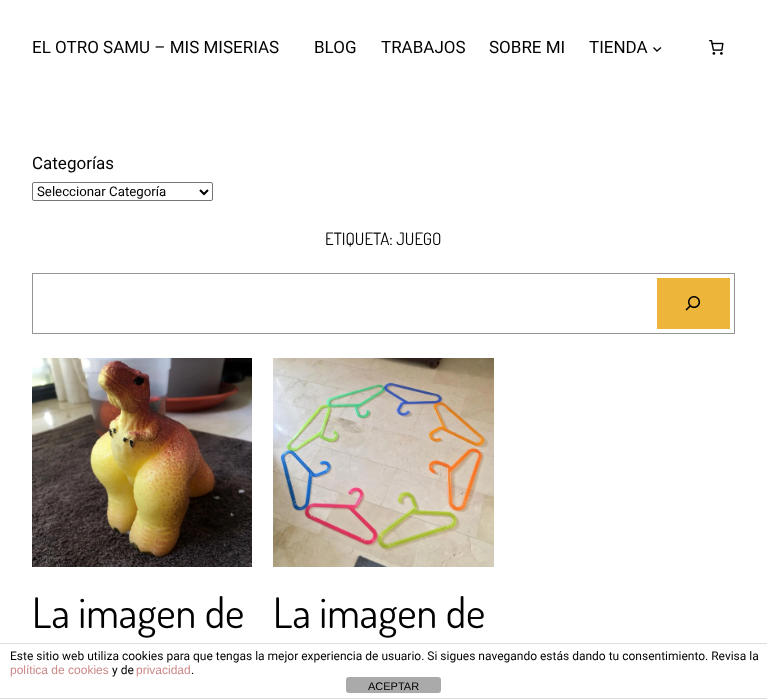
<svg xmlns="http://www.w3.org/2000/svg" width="767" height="699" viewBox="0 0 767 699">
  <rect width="100%" height="100%" fill="rgb(255,255,255)"/>
  <g font-family="Roboto" font-size="17" fill="rgb(0,0,0)">
    <text x="32" y="53">EL OTRO SAMU – MIS MISERIAS</text>
    <text x="314" y="53">BLOG</text>
    <text x="381" y="53">TRABAJOS</text>
    <text x="489" y="53">SOBRE MI</text>
    <text x="589" y="53">TIENDA</text>
  </g>
  <path d="M653.5 47.5L657 51L661 47.5" fill="none" stroke="rgb(0,0,0)" stroke-width="1.3"/>
  <image x="709" y="40" width="15" height="15" href="pic1.png"/>
  <text x="32" y="169" font-family="Roboto" font-size="17" fill="rgb(0,0,0)">Categorías</text>
  <rect x="32.5" y="182.5" width="180" height="18" rx="1.5" fill="none" stroke="rgb(118,118,118)"/>
  <path d="M200 190L204 194L208 190" fill="none" stroke="rgb(0,0,0)" stroke-width="2"/>
  <text x="37" y="196" font-family="Roboto" font-size="13.25" fill="rgb(0,0,0)">Seleccionar Categoría</text>
  <text x="325" y="245" font-family="Dosis" font-size="17" fill="rgb(0,0,0)">ETIQUETA: JUEGO</text>
  <rect x="32.5" y="273.5" width="702" height="60" fill="none" stroke="rgb(148,148,148)"/>
  <rect x="657" y="278" width="73" height="51" fill="rgb(237,182,58)"/>
  <image x="685" y="296" width="16" height="15" href="pic2.png"/>
  <image x="32" y="358" width="220" height="209" href="pic3.png"/>
  <text x="32" y="628" font-family="Dosis" font-size="42" fill="rgb(0,0,0)">La imagen de</text>
  <image x="273" y="358" width="221" height="209" href="pic4.png"/>
  <text x="273" y="628" font-family="Dosis" font-size="42" fill="rgb(0,0,0)">La imagen de</text>
  <rect x="0" y="643" width="767" height="1" fill="rgb(221,221,221)"/>
  <rect x="0" y="698" width="767" height="1" fill="rgb(221,221,221)"/>
  <text x="10" y="660" font-family="Roboto" font-size="12" fill="rgb(0,0,0)">Este sitio web utiliza cookies para que tengas la mejor experiencia de usuario. Si sigues navegando estás dando tu consentimiento. Revisa la</text>
  <text x="10" y="674" font-family="Liberation Sans" font-size="12" fill="rgb(204,136,136)">política de cookies</text>
  <text x="112" y="674" font-family="Roboto" font-size="12" fill="rgb(0,0,0)">y de</text>
  <text x="136" y="674" font-family="Liberation Sans" font-size="12" fill="rgb(204,136,136)">privacidad</text>
  <text x="191" y="674" font-family="Roboto" font-size="12" fill="rgb(0,0,0)">.</text>
  <rect x="346" y="677" width="95" height="16" rx="3" fill="rgb(170,170,170)"/>
  <text x="368" y="690" font-family="Liberation Sans" font-size="11" fill="rgb(0,0,0)">ACEPTAR</text>
</svg>
